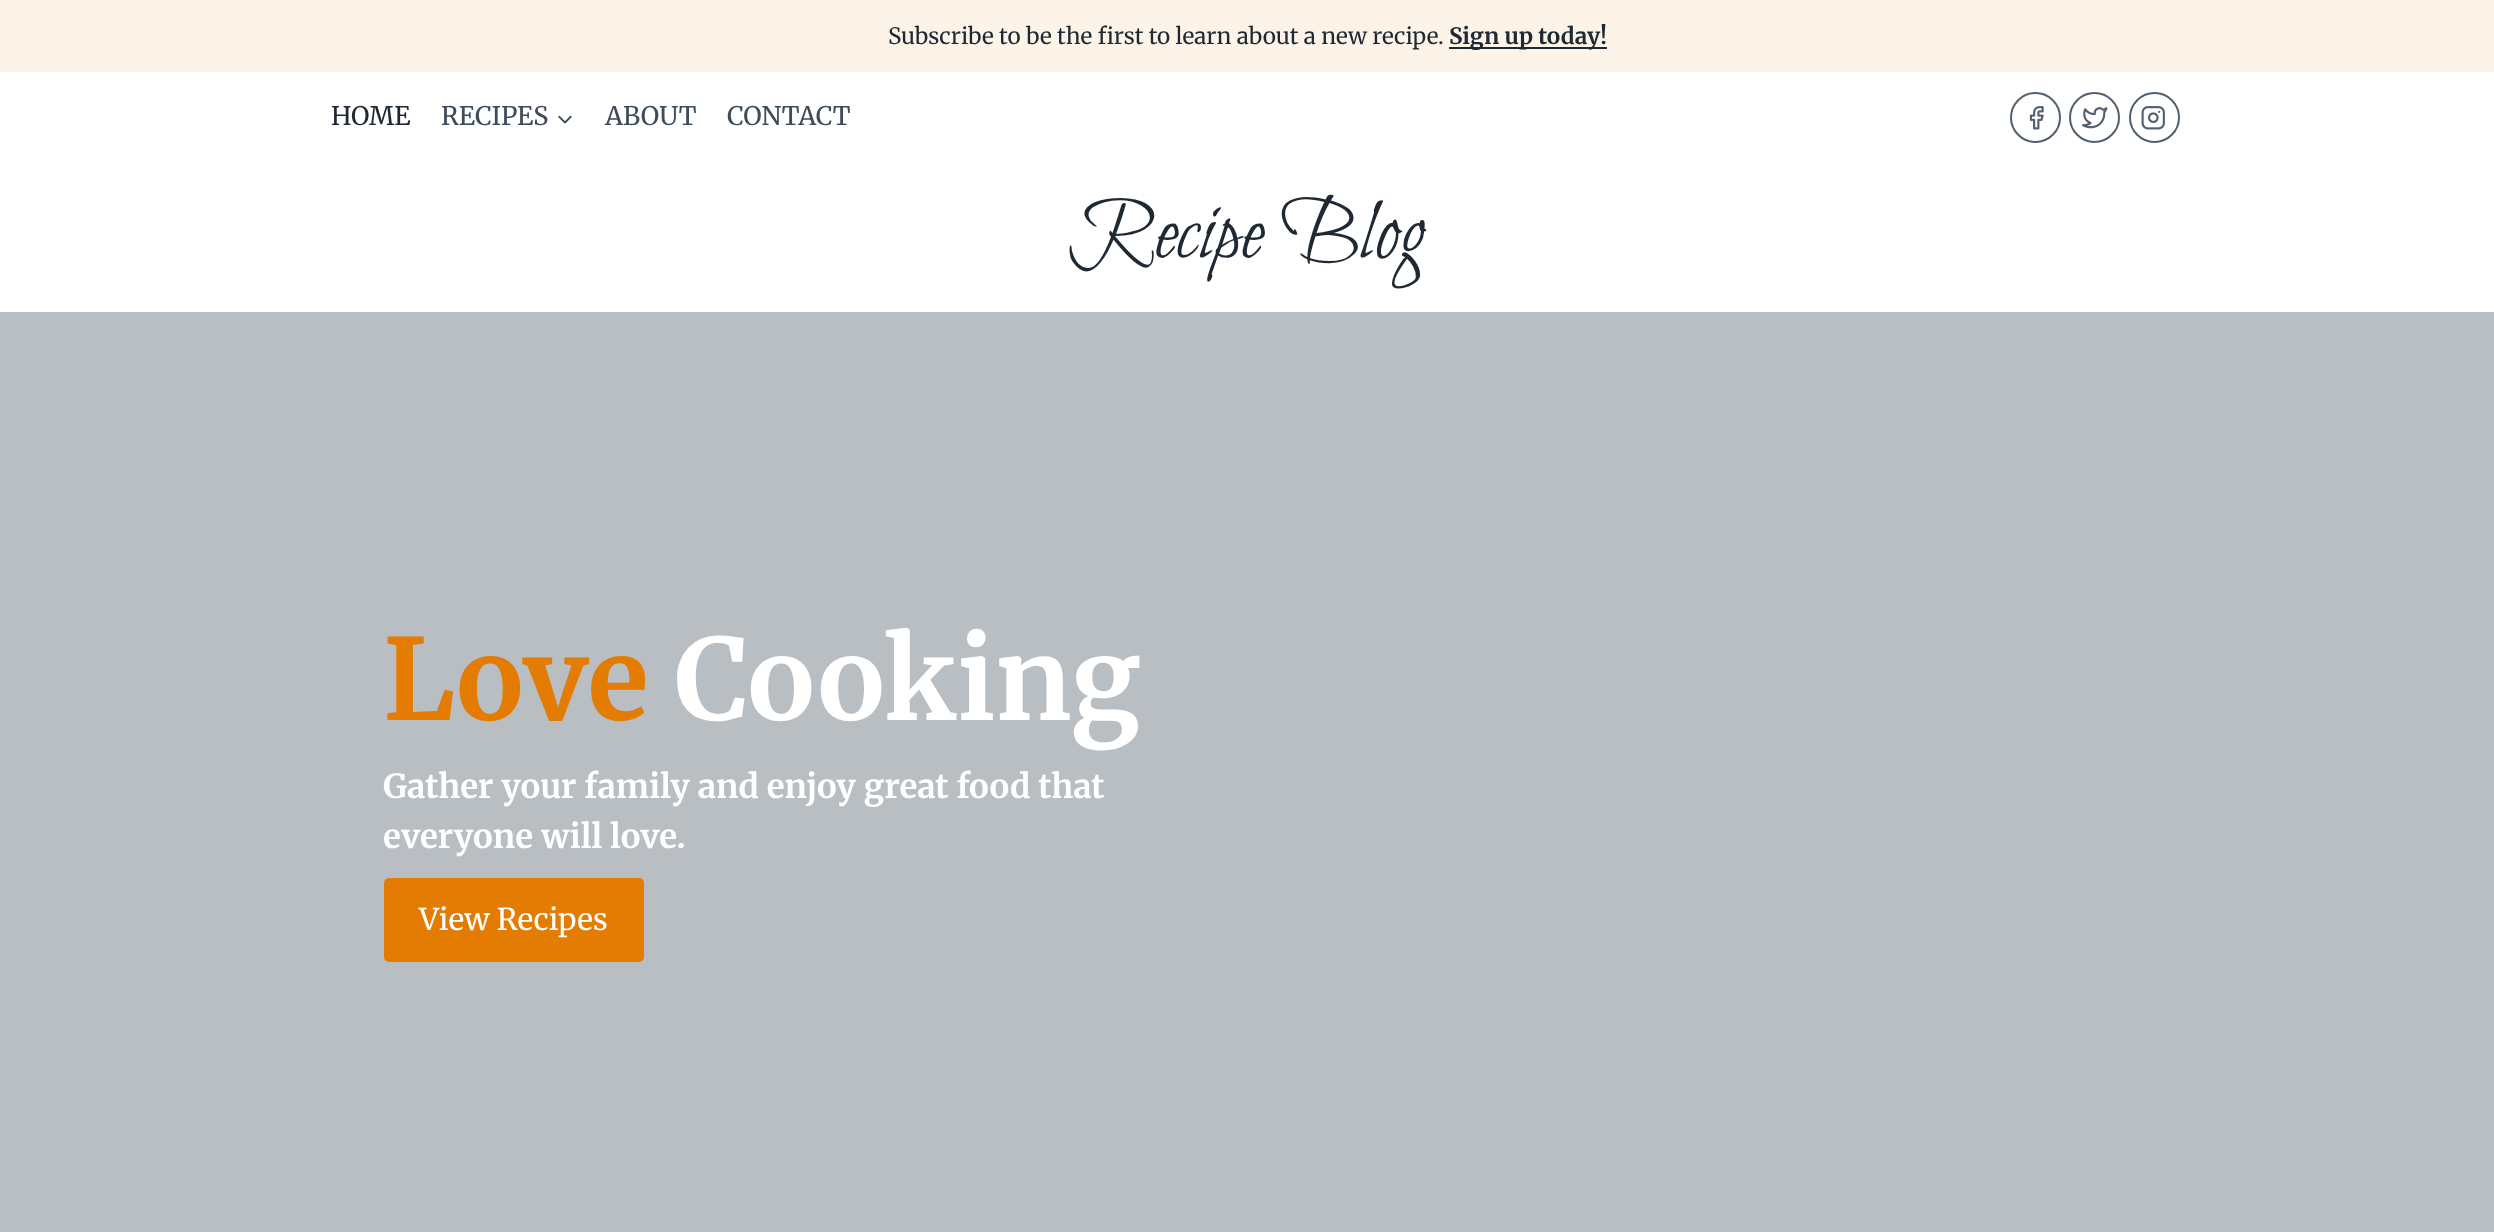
<svg xmlns="http://www.w3.org/2000/svg" width="2494" height="1232" viewBox="0 0 2494 1232">
  <rect width="100%" height="100%" fill="rgb(255,255,255)"/>
  <rect x="0" y="0" width="2494" height="72" fill="rgb(253,244,233)"/>
  <text x="888" y="44" font-family="Merriweather" font-size="22.5" fill="rgb(31,41,51)">Subscribe to be the first to learn about a new recipe.</text>
  <rect x="1449" y="47" width="158" height="2" fill="rgb(31,41,51)"/>
  <text x="1449" y="44" font-family="Merriweather" font-size="22.5" font-weight="bold" fill="rgb(31,41,51)">Sign up today!</text>
  <text x="331" y="125" font-family="Merriweather" font-size="25.5" fill="rgb(31,41,51)">HOME</text>
  <text x="441" y="125" font-family="Merriweather" font-size="25.5" fill="rgb(62,76,89)">RECIPES</text>
  <image x="558" y="115" width="14" height="9" href="pic1.png"/>
  <g font-family="Merriweather" font-size="25.5" fill="rgb(62,76,89)">
    <text x="605" y="125">ABOUT</text>
    <text x="727" y="125">CONTACT</text>
  </g>
  <circle cx="2035.5" cy="117.5" r="24.5" fill="none" stroke="rgb(82,96,109)" stroke-width="2"/>
  <image x="2029" y="106" width="15" height="24" href="pic2.png"/>
  <circle cx="2094.5" cy="117.5" r="24.5" fill="none" stroke="rgb(82,96,109)" stroke-width="2"/>
  <image x="2082" y="107" width="26" height="22" href="pic3.png"/>
  <circle cx="2154.5" cy="117.5" r="24.5" fill="none" stroke="rgb(82,96,109)" stroke-width="2"/>
  <image x="2141" y="106" width="24" height="24" href="pic4.png"/>
  <text x="1069" y="257" font-family="Bilbo Swash Caps" font-size="90" fill="rgb(31,41,51)">Recipe Blog</text>
  <rect x="0" y="312" width="2494" height="920" fill="rgb(185,190,195)"/>
  <text x="383" y="720" font-family="Merriweather" font-size="112.5" font-weight="bold" fill="rgb(228,123,2)">Love</text>
  <text x="675" y="720" font-family="Merriweather" font-size="112.5" font-weight="bold" fill="rgb(255,255,255)">Cooking</text>
  <g font-family="Merriweather" font-size="33" font-weight="bold" fill="rgb(255,255,255)">
    <text>
      <tspan x="383" y="798">Gather your family and enjoy great food that</tspan>
      <tspan x="383" y="848">everyone will love.</tspan>
    </text>
  </g>
  <rect x="384" y="878" width="260" height="84" rx="5" fill="rgb(228,123,2)"/>
  <text x="419" y="930" font-family="Merriweather" font-size="30" fill="rgb(255,255,255)">View Recipes</text>
</svg>
